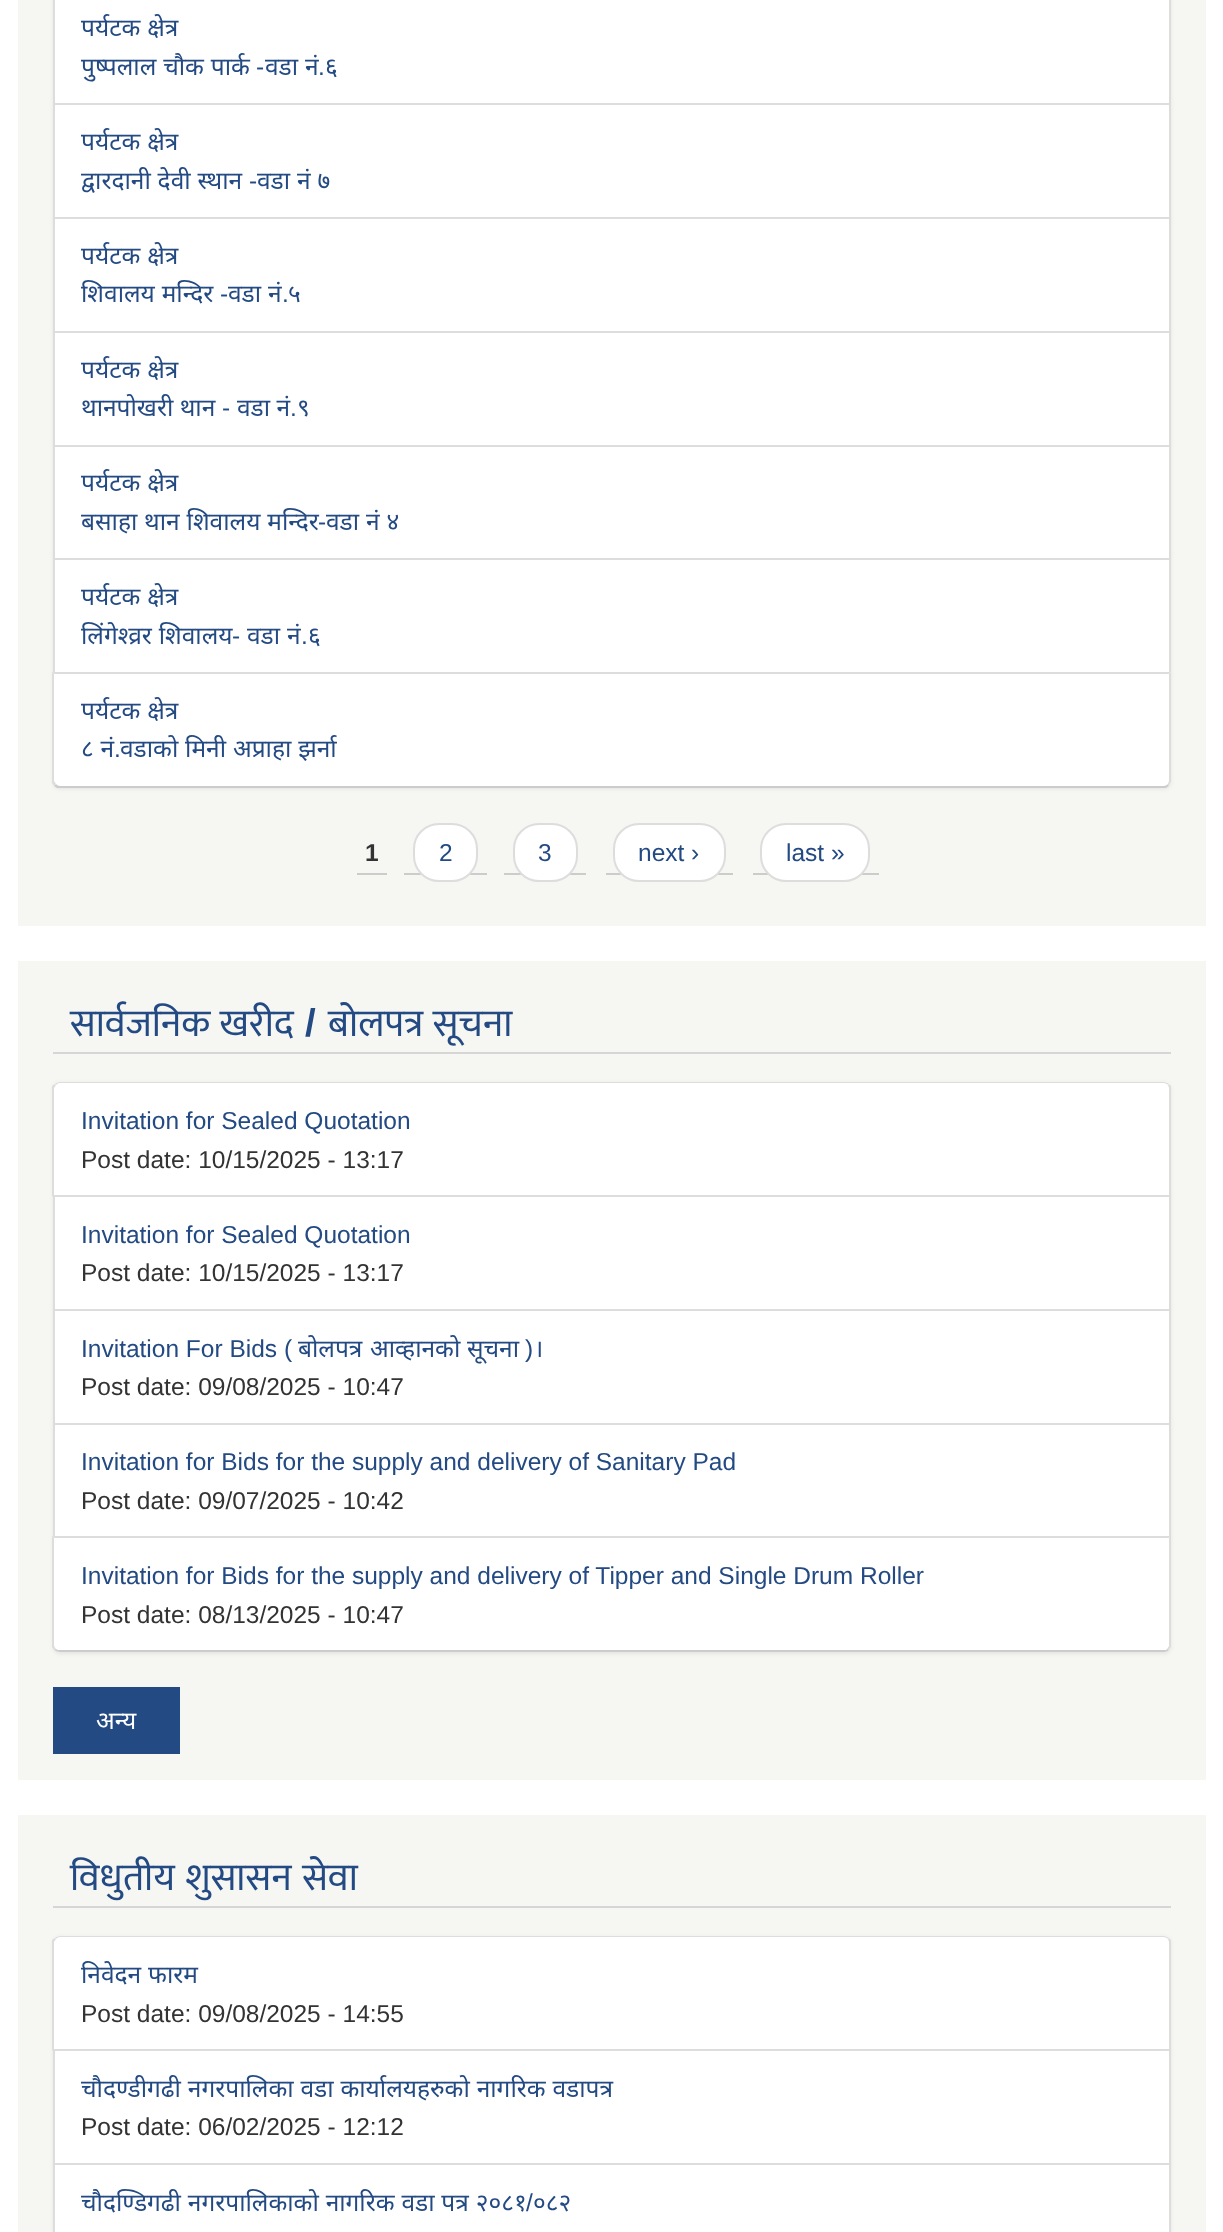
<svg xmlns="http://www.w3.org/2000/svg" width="1223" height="2232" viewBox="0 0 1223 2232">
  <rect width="100%" height="100%" fill="rgb(255,255,255)"/>
  <rect x="18" y="0" width="1188" height="926" fill="rgb(246,246,242)"/>
  <rect x="53" y="-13" width="1118" height="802" rx="7" fill="rgba(0,0,0,0.07)" filter="blur(2px)"/>
  <rect x="55" y="0" width="1114" height="103" fill="rgb(255,255,255)"/>
  <rect x="1169" y="0" width="2" height="105" fill="rgb(221,221,221)"/>
  <rect x="53" y="0" width="2" height="105" fill="rgb(221,221,221)"/>
  <g font-family="Noto Sans" font-size="24.5" fill="rgb(35,74,131)">
    <text>
      <tspan x="81" y="36" word-spacing="0.5">पर्यटक क्षेत्र</tspan>
      <tspan x="81" y="75" word-spacing="0.5">पुष्पलाल चौक पार्क</tspan>
    </text>
  </g>
  <text x="256" y="75" font-family="Liberation Sans" font-size="24.5" fill="rgb(35,74,131)">-</text>
  <g font-family="Noto Sans" font-size="24.5" fill="rgb(35,74,131)">
    <text x="265" y="75" word-spacing="0.5">वडा नं</text>
    <text x="325" y="75">६</text>
  </g>
  <text x="318" y="75" font-family="Liberation Sans" font-size="24.5" fill="rgb(35,74,131)">.</text>
  <rect x="55" y="105" width="1114" height="112" fill="rgb(255,255,255)"/>
  <rect x="53" y="103" width="1118" height="2" fill="rgb(221,221,221)"/>
  <rect x="1169" y="103" width="2" height="116" fill="rgb(221,221,221)"/>
  <rect x="53" y="103" width="2" height="116" fill="rgb(221,221,221)"/>
  <g font-family="Noto Sans" font-size="24.5" fill="rgb(35,74,131)">
    <text>
      <tspan x="81" y="150" word-spacing="0.5">पर्यटक क्षेत्र</tspan>
      <tspan x="81" y="189" word-spacing="0.5">द्वारदानी देवी स्थान</tspan>
    </text>
  </g>
  <text x="249" y="189" font-family="Liberation Sans" font-size="24.5" fill="rgb(35,74,131)">-</text>
  <text x="257" y="189" word-spacing="0.5" font-family="Noto Sans" font-size="24.5" fill="rgb(35,74,131)">वडा नं ७</text>
  <rect x="55" y="219" width="1114" height="112" fill="rgb(255,255,255)"/>
  <rect x="53" y="217" width="1118" height="2" fill="rgb(221,221,221)"/>
  <rect x="1169" y="217" width="2" height="116" fill="rgb(221,221,221)"/>
  <rect x="53" y="217" width="2" height="116" fill="rgb(221,221,221)"/>
  <g font-family="Noto Sans" font-size="24.5" fill="rgb(35,74,131)">
    <text>
      <tspan x="81" y="264" word-spacing="0.5">पर्यटक क्षेत्र</tspan>
      <tspan x="81" y="302" word-spacing="0.5">शिवालय मन्दिर</tspan>
    </text>
  </g>
  <text x="220" y="302" font-family="Liberation Sans" font-size="24.5" fill="rgb(35,74,131)">-</text>
  <g font-family="Noto Sans" font-size="24.5" fill="rgb(35,74,131)">
    <text x="228" y="302" word-spacing="0.5">वडा नं</text>
    <text x="288" y="302">५</text>
  </g>
  <text x="282" y="302" font-family="Liberation Sans" font-size="24.5" fill="rgb(35,74,131)">.</text>
  <rect x="55" y="333" width="1114" height="112" fill="rgb(255,255,255)"/>
  <rect x="53" y="331" width="1118" height="2" fill="rgb(221,221,221)"/>
  <rect x="1169" y="331" width="2" height="115" fill="rgb(221,221,221)"/>
  <rect x="53" y="331" width="2" height="115" fill="rgb(221,221,221)"/>
  <g font-family="Noto Sans" font-size="24.5" fill="rgb(35,74,131)">
    <text>
      <tspan x="81" y="378" word-spacing="0.5">पर्यटक क्षेत्र</tspan>
      <tspan x="81" y="416">थानपोखरी थान</tspan>
    </text>
  </g>
  <text x="222" y="416" font-family="Liberation Sans" font-size="24.5" fill="rgb(35,74,131)">-</text>
  <g font-family="Noto Sans" font-size="24.5" fill="rgb(35,74,131)">
    <text x="237" y="416">वडा नं</text>
    <text x="297" y="416">९</text>
  </g>
  <text x="290" y="416" font-family="Liberation Sans" font-size="24.5" fill="rgb(35,74,131)">.</text>
  <rect x="55" y="447" width="1114" height="111" fill="rgb(255,255,255)"/>
  <rect x="53" y="445" width="1118" height="2" fill="rgb(221,221,221)"/>
  <rect x="1169" y="445" width="2" height="115" fill="rgb(221,221,221)"/>
  <rect x="53" y="445" width="2" height="115" fill="rgb(221,221,221)"/>
  <g font-family="Noto Sans" font-size="24.5" fill="rgb(35,74,131)">
    <text>
      <tspan x="81" y="491" word-spacing="0.5">पर्यटक क्षेत्र</tspan>
      <tspan x="81" y="530" word-spacing="0.5">बसाहा थान शिवालय मन्दिर</tspan>
    </text>
  </g>
  <text x="318" y="530" font-family="Liberation Sans" font-size="24.5" fill="rgb(35,74,131)">-</text>
  <text x="326" y="530" word-spacing="0.5" font-family="Noto Sans" font-size="24.5" fill="rgb(35,74,131)">वडा नं ४</text>
  <rect x="55" y="560" width="1114" height="112" fill="rgb(255,255,255)"/>
  <rect x="53" y="558" width="1118" height="2" fill="rgb(221,221,221)"/>
  <rect x="1169" y="558" width="2" height="116" fill="rgb(221,221,221)"/>
  <rect x="53" y="558" width="2" height="116" fill="rgb(221,221,221)"/>
  <g font-family="Noto Sans" font-size="24.5" fill="rgb(35,74,131)">
    <text>
      <tspan x="81" y="605" word-spacing="0.5">पर्यटक क्षेत्र</tspan>
      <tspan x="81" y="644" word-spacing="0.5">लिंगेश्व्रर शिवालय</tspan>
    </text>
  </g>
  <text x="232" y="644" font-family="Liberation Sans" font-size="24.5" fill="rgb(35,74,131)">-</text>
  <g font-family="Noto Sans" font-size="24.5" fill="rgb(35,74,131)">
    <text x="247" y="644" word-spacing="0.5">वडा नं</text>
    <text x="308" y="644">६</text>
  </g>
  <text x="301" y="644" font-family="Liberation Sans" font-size="24.5" fill="rgb(35,74,131)">.</text>
  <path d="M53 672H1171V781C1171 785 1168 788 1164 788H60C56 788 53 785 53 781Z" fill="rgb(255,255,255)"/>
  <path d="M52 672L54 674H1169L1171 672Z" fill="rgb(221,221,221)"/>
  <path d="M1171 672V782L1169 786L1168 784C1168 783 1169 782 1169 780V674Z" fill="rgb(221,221,221)"/>
  <path d="M57 788L54 786L56 784C57 785 58 786 60 786H1164C1165 786 1167 785 1168 784L1169 786L1166 788Z" fill="rgb(204,204,204)"/>
  <path d="M54 674V781L56 784L54 786L52 783V672Z" fill="rgb(221,221,221)"/>
  <g font-family="Noto Sans" font-size="24.5" fill="rgb(35,74,131)">
    <text>
      <tspan x="81" y="719" word-spacing="0.5">पर्यटक क्षेत्र</tspan>
      <tspan x="81" y="757" word-spacing="0.5">८ नं</tspan>
    </text>
  </g>
  <text x="114" y="757" font-family="Liberation Sans" font-size="24.5" fill="rgb(35,74,131)">.</text>
  <text x="120" y="757" word-spacing="0.5" font-family="Noto Sans" font-size="24.5" fill="rgb(35,74,131)">वडाको मिनी अप्राहा झर्ना</text>
  <text x="365" y="861" font-family="Liberation Sans" font-size="24.5" font-weight="bold" fill="rgb(51,51,51)">1</text>
  <rect x="357" y="873" width="30" height="2" fill="rgb(204,204,204)"/>
  <rect x="404" y="873" width="83" height="2" fill="rgb(204,204,204)"/>
  <rect x="414" y="824" width="63" height="57" rx="25" fill="rgb(255,255,255)" stroke="rgb(221,221,221)" stroke-width="2"/>
  <text x="439" y="861" font-family="Liberation Sans" font-size="24.5" fill="rgb(35,74,131)">2</text>
  <rect x="504" y="873" width="82" height="2" fill="rgb(204,204,204)"/>
  <rect x="514" y="824" width="63" height="57" rx="25" fill="rgb(255,255,255)" stroke="rgb(221,221,221)" stroke-width="2"/>
  <text x="538" y="861" font-family="Liberation Sans" font-size="24.5" fill="rgb(35,74,131)">3</text>
  <rect x="606" y="873" width="127" height="2" fill="rgb(204,204,204)"/>
  <rect x="614" y="824" width="111" height="57" rx="25" fill="rgb(255,255,255)" stroke="rgb(221,221,221)" stroke-width="2"/>
  <text x="638" y="861" font-family="Liberation Sans" font-size="24.5" fill="rgb(35,74,131)">next ›</text>
  <rect x="753" y="873" width="126" height="2" fill="rgb(204,204,204)"/>
  <rect x="761" y="824" width="108" height="57" rx="25" fill="rgb(255,255,255)" stroke="rgb(221,221,221)" stroke-width="2"/>
  <text x="786" y="861" font-family="Liberation Sans" font-size="24.5" fill="rgb(35,74,131)">last »</text>
  <rect x="18" y="961" width="1188" height="819" fill="rgb(246,246,242)"/>
  <rect x="53" y="1052" width="1118" height="2" fill="rgb(214,214,214)"/>
  <text x="70" y="1036" word-spacing="1" font-family="Mukta" font-size="38.5" fill="rgb(35,74,131)">सार्वजनिक खरीद</text>
  <text x="305" y="1036" font-family="Liberation Sans" font-size="38.5" font-weight="bold" fill="rgb(35,74,131)">/</text>
  <text x="328" y="1036" word-spacing="1" font-family="Mukta" font-size="38.5" fill="rgb(35,74,131)">बोलपत्र सूचना</text>
  <rect x="53" y="1083" width="1118" height="571" rx="7" fill="rgba(0,0,0,0.07)" filter="blur(2px)"/>
  <path d="M60 1082H1164C1168 1082 1171 1085 1171 1089V1197H53V1089C53 1085 56 1082 60 1082Z" fill="rgb(255,255,255)"/>
  <path d="M60 1082C58 1082 56 1083 55 1084L56 1085C57 1084 58 1083 60 1083H1164C1165 1083 1167 1084 1168 1085L1169 1084C1167 1083 1166 1082 1164 1082Z" fill="rgb(221,221,221)"/>
  <path d="M1169 1084L1171 1086V1197L1169 1195V1088L1168 1085Z" fill="rgb(221,221,221)"/>
  <path d="M52 1197L54 1195V1088L56 1085L55 1084L52 1086Z" fill="rgb(221,221,221)"/>
  <text x="81" y="1129" font-family="Liberation Sans" font-size="24.5" fill="rgb(35,74,131)">Invitation for Sealed Quotation</text>
  <text x="81" y="1168" font-family="Liberation Sans" font-size="24.5" fill="rgb(51,51,51)">Post date: 10/15/2025 - 13:17</text>
  <rect x="55" y="1197" width="1114" height="112" fill="rgb(255,255,255)"/>
  <rect x="53" y="1195" width="1118" height="2" fill="rgb(221,221,221)"/>
  <rect x="1169" y="1195" width="2" height="116" fill="rgb(221,221,221)"/>
  <rect x="53" y="1195" width="2" height="116" fill="rgb(221,221,221)"/>
  <text x="81" y="1243" font-family="Liberation Sans" font-size="24.5" fill="rgb(35,74,131)">Invitation for Sealed Quotation</text>
  <text x="81" y="1281" font-family="Liberation Sans" font-size="24.5" fill="rgb(51,51,51)">Post date: 10/15/2025 - 13:17</text>
  <rect x="55" y="1311" width="1114" height="112" fill="rgb(255,255,255)"/>
  <rect x="53" y="1309" width="1118" height="2" fill="rgb(221,221,221)"/>
  <rect x="1169" y="1309" width="2" height="116" fill="rgb(221,221,221)"/>
  <rect x="53" y="1309" width="2" height="116" fill="rgb(221,221,221)"/>
  <text x="81" y="1357" font-family="Liberation Sans" font-size="24.5" fill="rgb(35,74,131)">Invitation For Bids (</text>
  <g font-family="Noto Sans" font-size="24.5" fill="rgb(35,74,131)">
    <text x="298" y="1357">बोलपत्र</text>
    <text x="370" y="1357">आव्हानको</text>
    <text x="467" y="1357">सूचना</text>
  </g>
  <text x="525" y="1357" font-family="Liberation Sans" font-size="24.5" fill="rgb(35,74,131)">)</text>
  <text x="534" y="1357" font-family="Noto Sans" font-size="24.5" fill="rgb(35,74,131)">।</text>
  <text x="81" y="1395" font-family="Liberation Sans" font-size="24.5" fill="rgb(51,51,51)">Post date: 09/08/2025 - 10:47</text>
  <rect x="55" y="1425" width="1114" height="111" fill="rgb(255,255,255)"/>
  <rect x="53" y="1423" width="1118" height="2" fill="rgb(221,221,221)"/>
  <rect x="1169" y="1423" width="2" height="115" fill="rgb(221,221,221)"/>
  <rect x="53" y="1423" width="2" height="115" fill="rgb(221,221,221)"/>
  <text x="81" y="1470" font-family="Liberation Sans" font-size="24.5" fill="rgb(35,74,131)">Invitation for Bids for the supply and delivery of Sanitary Pad</text>
  <text x="81" y="1509" font-family="Liberation Sans" font-size="24.5" fill="rgb(51,51,51)">Post date: 09/07/2025 - 10:42</text>
  <path d="M53 1537H1171V1645C1171 1649 1168 1652 1164 1652H60C56 1652 53 1649 53 1645Z" fill="rgb(255,255,255)"/>
  <path d="M54 1538H1169L1171 1536H52Z" fill="rgb(221,221,221)"/>
  <path d="M1171 1536V1647L1169 1650L1167 1649L1169 1646V1538Z" fill="rgb(221,221,221)"/>
  <path d="M60 1652H1164C1166 1652 1168 1651 1169 1650L1167 1649C1167 1650 1165 1650 1164 1650H60C58 1650 57 1650 56 1649L54 1650C56 1651 58 1652 60 1652Z" fill="rgb(204,204,204)"/>
  <path d="M54 1538V1645C54 1646 55 1648 56 1649L54 1650L52 1647V1536Z" fill="rgb(221,221,221)"/>
  <text x="81" y="1584" font-family="Liberation Sans" font-size="24.5" fill="rgb(35,74,131)">Invitation for Bids for the supply and delivery of Tipper and Single Drum Roller</text>
  <text x="81" y="1623" font-family="Liberation Sans" font-size="24.5" fill="rgb(51,51,51)">Post date: 08/13/2025 - 10:47</text>
  <rect x="53" y="1687" width="127" height="67" fill="rgb(35,74,131)"/>
  <text x="96" y="1729" font-family="Noto Sans" font-size="24.5" fill="rgb(255,255,255)">अन्य</text>
  <rect x="18" y="1815" width="1188" height="417" fill="rgb(246,246,242)"/>
  <rect x="53" y="1906" width="1118" height="2" fill="rgb(214,214,214)"/>
  <text x="70" y="1890" word-spacing="2" font-family="Mukta" font-size="38.5" fill="rgb(35,74,131)">विधुतीय शुसासन सेवा</text>
  <rect x="53" y="1937" width="1118" height="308" rx="7" fill="rgba(0,0,0,0.07)" filter="blur(2px)"/>
  <path d="M60 1936H1164C1168 1936 1171 1939 1171 1943V2051H53V1943C53 1939 56 1936 60 1936Z" fill="rgb(255,255,255)"/>
  <path d="M60 1936C58 1936 56 1937 55 1938L56 1939C57 1938 58 1937 60 1937H1164C1165 1937 1167 1938 1168 1939L1169 1938C1167 1937 1166 1936 1164 1936Z" fill="rgb(221,221,221)"/>
  <path d="M1169 1938L1171 1940V2051L1169 2049V1942L1168 1939Z" fill="rgb(221,221,221)"/>
  <path d="M52 2051L54 2049V1942L56 1939L55 1938L52 1940Z" fill="rgb(221,221,221)"/>
  <text x="81" y="1983" word-spacing="0.5" font-family="Noto Sans" font-size="24.5" fill="rgb(35,74,131)">निवेदन फारम</text>
  <text x="81" y="2022" font-family="Liberation Sans" font-size="24.5" fill="rgb(51,51,51)">Post date: 09/08/2025 - 14:55</text>
  <rect x="55" y="2051" width="1114" height="112" fill="rgb(255,255,255)"/>
  <rect x="53" y="2049" width="1118" height="2" fill="rgb(221,221,221)"/>
  <rect x="1169" y="2049" width="2" height="116" fill="rgb(221,221,221)"/>
  <rect x="53" y="2049" width="2" height="116" fill="rgb(221,221,221)"/>
  <text x="81" y="2097" word-spacing="0.5" font-family="Noto Sans" font-size="24.5" fill="rgb(35,74,131)">चौदण्डीगढी नगरपालिका वडा कार्यालयहरुको नागरिक वडापत्र</text>
  <text x="81" y="2135" font-family="Liberation Sans" font-size="24.5" fill="rgb(51,51,51)">Post date: 06/02/2025 - 12:12</text>
  <rect x="55" y="2165" width="1114" height="67" fill="rgb(255,255,255)"/>
  <rect x="53" y="2163" width="1118" height="2" fill="rgb(221,221,221)"/>
  <rect x="1169" y="2163" width="2" height="69" fill="rgb(221,221,221)"/>
  <rect x="53" y="2163" width="2" height="69" fill="rgb(221,221,221)"/>
  <text x="81" y="2211" word-spacing="0.5" font-family="Noto Sans" font-size="24.5" fill="rgb(35,74,131)">चौदण्डिगढी नगरपालिकाको नागरिक वडा पत्र २०८१</text>
  <text x="526" y="2211" font-family="Liberation Sans" font-size="24.5" fill="rgb(35,74,131)">/</text>
  <text x="533" y="2211" font-family="Noto Sans" font-size="24.5" fill="rgb(35,74,131)">०८२</text>
</svg>
